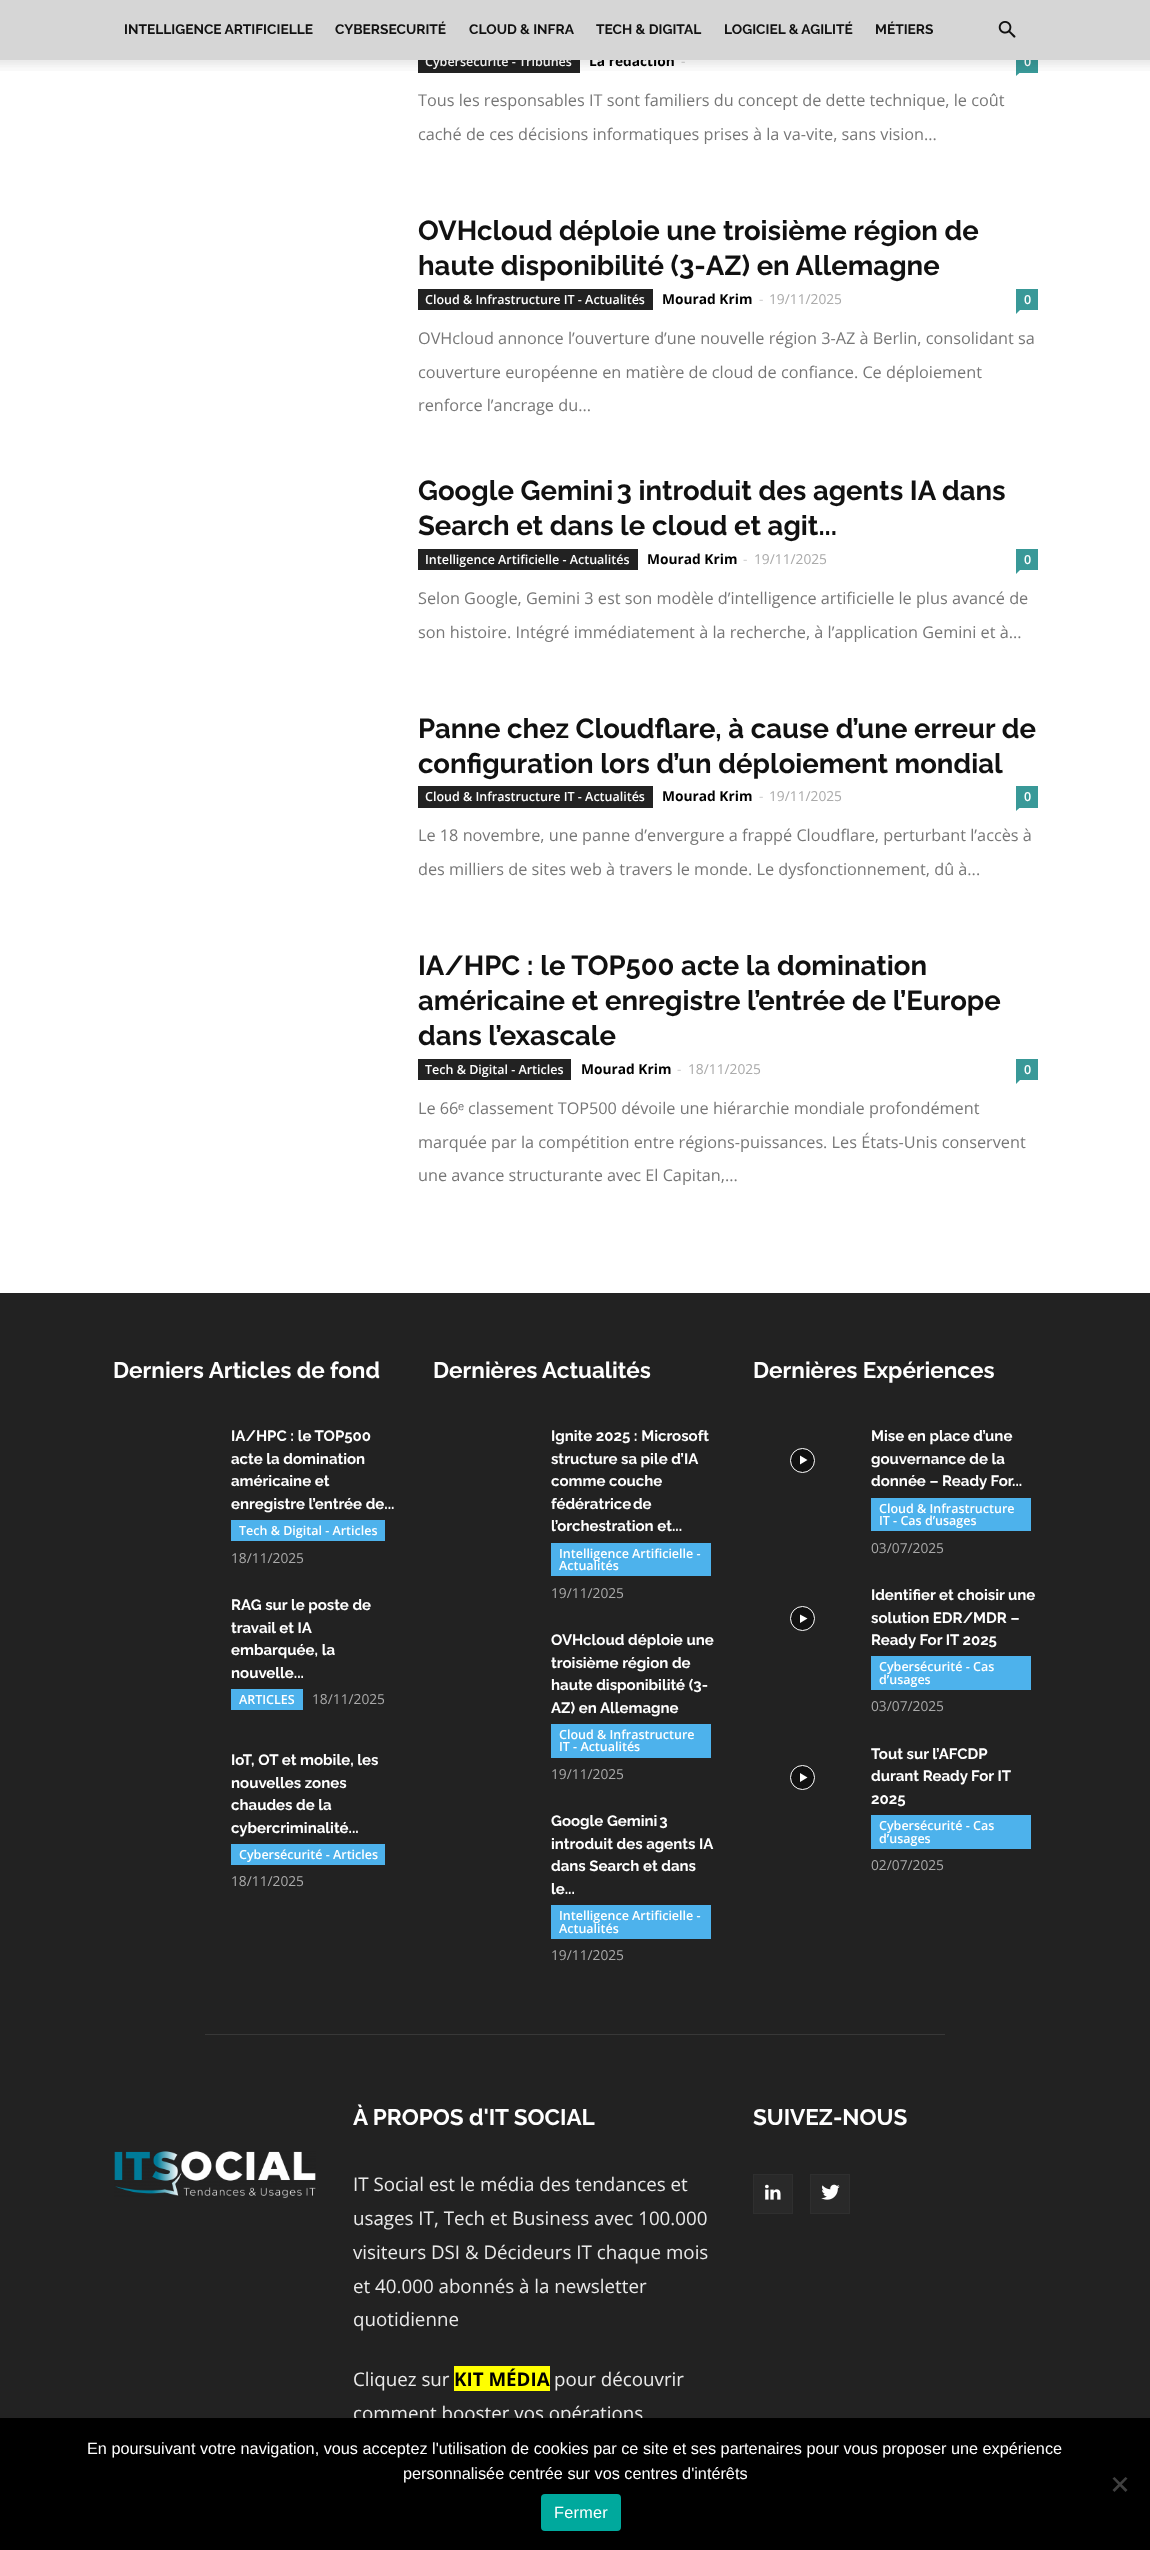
<svg xmlns="http://www.w3.org/2000/svg" width="1150" height="2550" viewBox="0 0 1150 2550">
  <rect width="100%" height="100%" fill="rgb(255,255,255)"/>
  <rect x="418" y="60" width="162" height="13" fill="rgb(34,34,34)"/>
  <text x="425" y="66" font-family="Open Sans" font-size="12.5" font-weight="600" fill="rgb(255,255,255)">Cybersécurité - Tribunes</text>
  <text x="589" y="66" font-family="Open Sans" font-size="13.75" font-weight="bold" fill="rgb(0,0,0)">La rédaction</text>
  <rect x="1016" y="60" width="22" height="13" fill="rgb(57,153,152)"/>
  <text x="1024" y="66" font-family="Open Sans" font-size="12.5" font-weight="600" fill="rgb(255,255,255)">0</text>
  <rect x="0" y="0" width="1150" height="60" fill="rgb(214,214,214)"/>
  <g font-family="Raleway" font-size="13.75" font-weight="bold" fill="rgb(17,17,17)">
    <text x="124" y="34">INTELLIGENCE ARTIFICIELLE</text>
    <text x="335" y="34">CYBERSECURITÉ</text>
    <text x="469" y="34">CLOUD &amp; INFRA</text>
    <text x="596" y="34">TECH &amp; DIGITAL</text>
    <text x="724" y="34">LOGICIEL &amp; AGILITÉ</text>
    <text x="875" y="34">MÉTIERS</text>
  </g>
  <image x="998" y="21" width="18" height="17" href="pic1.png"/>
  <text x="681" y="66" font-family="Open Sans" font-size="13.75" fill="rgb(204,204,204)">-</text>
  <image x="0" y="60" width="1150" height="11" href="pic2.png"/>
  <path d="M1016 72.5H1020L1016 76Z" fill="rgb(57,153,152)"/>
  <g font-family="Open Sans" font-size="16.25" fill="rgb(119,119,119)">
    <text x="418" y="106">Tous les responsables IT sont familiers du concept de dette technique, le coût</text>
    <text x="418" y="140">caché de ces décisions informatiques prises à la va-vite, sans vision...</text>
  </g>
  <g font-family="Raleway" font-size="27.5" font-weight="bold" fill="rgb(17,17,17)">
    <text>
      <tspan x="418" y="240">OVHcloud déploie une troisième région de</tspan>
      <tspan x="418" y="275">haute disponibilité (3-AZ) en Allemagne</tspan>
    </text>
  </g>
  <rect x="418" y="289" width="235" height="21" fill="rgb(34,34,34)"/>
  <text x="425" y="304" font-family="Open Sans" font-size="12.5" font-weight="600" fill="rgb(255,255,255)">Cloud &amp; Infrastructure IT - Actualités</text>
  <text x="662" y="304" font-family="Open Sans" font-size="13.75" font-weight="bold" fill="rgb(0,0,0)">Mourad Krim</text>
  <text x="759" y="304" font-family="Open Sans" font-size="13.75" fill="rgb(204,204,204)">-</text>
  <text x="769" y="304" font-family="Open Sans" font-size="13.75" fill="rgb(170,170,170)">19/11/2025</text>
  <rect x="1016" y="289" width="22" height="21" fill="rgb(57,153,152)"/>
  <text x="1024" y="304" font-family="Open Sans" font-size="12.5" font-weight="600" fill="rgb(255,255,255)">0</text>
  <path d="M1016 310H1020L1016 314Z" fill="rgb(57,153,152)"/>
  <g font-family="Open Sans" font-size="16.25" fill="rgb(119,119,119)">
    <text x="418" y="344">OVHcloud annonce l’ouverture d’une nouvelle région 3-AZ à Berlin, consolidant sa</text>
    <text x="418" y="378">couverture européenne en matière de cloud de confiance. Ce déploiement</text>
    <text x="418" y="411">renforce l’ancrage du...</text>
  </g>
  <g font-family="Raleway" font-size="27.5" font-weight="bold" fill="rgb(17,17,17)">
    <text>
      <tspan x="418" y="500">Google Gemini 3 introduit des agents IA dans</tspan>
      <tspan x="418" y="535">Search et dans le cloud et agit...</tspan>
    </text>
  </g>
  <rect x="418" y="549" width="220" height="21" fill="rgb(34,34,34)"/>
  <text x="425" y="564" font-family="Open Sans" font-size="12.5" font-weight="600" fill="rgb(255,255,255)">Intelligence Artificielle - Actualités</text>
  <text x="647" y="564" font-family="Open Sans" font-size="13.75" font-weight="bold" fill="rgb(0,0,0)">Mourad Krim</text>
  <text x="743" y="564" font-family="Open Sans" font-size="13.75" fill="rgb(204,204,204)">-</text>
  <text x="754" y="564" font-family="Open Sans" font-size="13.75" fill="rgb(170,170,170)">19/11/2025</text>
  <rect x="1016" y="549" width="22" height="21" fill="rgb(57,153,152)"/>
  <text x="1024" y="564" font-family="Open Sans" font-size="12.5" font-weight="600" fill="rgb(255,255,255)">0</text>
  <path d="M1016 570H1020L1016 574Z" fill="rgb(57,153,152)"/>
  <g font-family="Open Sans" font-size="16.25" fill="rgb(119,119,119)">
    <text x="418" y="604">Selon Google, Gemini 3 est son modèle d’intelligence artificielle le plus avancé de</text>
    <text x="418" y="638">son histoire. Intégré immédiatement à la recherche, à l’application Gemini et à...</text>
  </g>
  <g font-family="Raleway" font-size="27.5" font-weight="bold" fill="rgb(17,17,17)">
    <text>
      <tspan x="418" y="738">Panne chez Cloudflare, à cause d’une erreur de</tspan>
      <tspan x="418" y="773">configuration lors d’un déploiement mondial</tspan>
    </text>
  </g>
  <rect x="418" y="786" width="235" height="22" fill="rgb(34,34,34)"/>
  <text x="425" y="801" font-family="Open Sans" font-size="12.5" font-weight="600" fill="rgb(255,255,255)">Cloud &amp; Infrastructure IT - Actualités</text>
  <text x="662" y="801" font-family="Open Sans" font-size="13.75" font-weight="bold" fill="rgb(0,0,0)">Mourad Krim</text>
  <text x="759" y="801" font-family="Open Sans" font-size="13.75" fill="rgb(204,204,204)">-</text>
  <text x="769" y="801" font-family="Open Sans" font-size="13.75" fill="rgb(170,170,170)">19/11/2025</text>
  <rect x="1016" y="786" width="22" height="22" fill="rgb(57,153,152)"/>
  <text x="1024" y="801" font-family="Open Sans" font-size="12.5" font-weight="600" fill="rgb(255,255,255)">0</text>
  <path d="M1016 807.5H1020L1016 811Z" fill="rgb(57,153,152)"/>
  <g font-family="Open Sans" font-size="16.25" fill="rgb(119,119,119)">
    <text x="418" y="841">Le 18 novembre, une panne d’envergure a frappé Cloudflare, perturbant l’accès à</text>
    <text x="418" y="875">des milliers de sites web à travers le monde. Le dysfonctionnement, dû à...</text>
  </g>
  <g font-family="Raleway" font-size="27.5" font-weight="bold" fill="rgb(17,17,17)">
    <text>
      <tspan x="418" y="975">IA/HPC : le TOP500 acte la domination</tspan>
      <tspan x="418" y="1010">américaine et enregistre l’entrée de l’Europe</tspan>
      <tspan x="418" y="1045">dans l’exascale</tspan>
    </text>
  </g>
  <rect x="418" y="1059" width="153" height="21" fill="rgb(34,34,34)"/>
  <text x="425" y="1074" font-family="Open Sans" font-size="12.5" font-weight="600" fill="rgb(255,255,255)">Tech &amp; Digital - Articles</text>
  <text x="581" y="1074" font-family="Open Sans" font-size="13.75" font-weight="bold" fill="rgb(0,0,0)">Mourad Krim</text>
  <text x="677" y="1074" font-family="Open Sans" font-size="13.75" fill="rgb(204,204,204)">-</text>
  <text x="688" y="1074" font-family="Open Sans" font-size="13.75" fill="rgb(170,170,170)">18/11/2025</text>
  <rect x="1016" y="1059" width="22" height="21" fill="rgb(57,153,152)"/>
  <text x="1024" y="1074" font-family="Open Sans" font-size="12.5" font-weight="600" fill="rgb(255,255,255)">0</text>
  <path d="M1016 1080H1020L1016 1084Z" fill="rgb(57,153,152)"/>
  <text x="418" y="1114" font-family="Open Sans" font-size="16.25" fill="rgb(119,119,119)">Le 66</text>
  <text x="458" y="1114" font-family="Liberation Sans" font-size="16.25" fill="rgb(119,119,119)">ᵉ</text>
  <g font-family="Open Sans" font-size="16.25" fill="rgb(119,119,119)">
    <text x="468" y="1114">classement TOP500 dévoile une hiérarchie mondiale profondément</text>
    <text x="418" y="1148">marquée par la compétition entre régions-puissances. Les États-Unis conservent</text>
    <text x="418" y="1181">une avance structurante avec El Capitan,...</text>
  </g>
  <rect x="0" y="1293" width="1150" height="1125" fill="rgb(34,34,34)"/>
  <text x="113" y="1378" font-family="Raleway" font-size="22.5" font-weight="bold" fill="rgb(255,255,255)">Derniers Articles de fond</text>
  <g font-family="Raleway" font-size="15" font-weight="bold" fill="rgb(255,255,255)">
    <text>
      <tspan x="231" y="1441">IA/HPC : le TOP500</tspan>
      <tspan x="231" y="1464">acte la domination</tspan>
      <tspan x="231" y="1486">américaine et</tspan>
      <tspan x="231" y="1509">enregistre l’entrée de...</tspan>
    </text>
  </g>
  <rect x="231" y="1520" width="154" height="21" fill="rgb(77,178,236)"/>
  <text x="239" y="1535" font-family="Open Sans" font-size="12.5" font-weight="600" fill="rgb(255,255,255)">Tech &amp; Digital - Articles</text>
  <text x="231" y="1563" font-family="Open Sans" font-size="13.75" fill="rgb(170,170,170)">18/11/2025</text>
  <g font-family="Raleway" font-size="15" font-weight="bold" fill="rgb(255,255,255)">
    <text>
      <tspan x="231" y="1610">RAG sur le poste de</tspan>
      <tspan x="231" y="1633">travail et IA</tspan>
      <tspan x="231" y="1655">embarquée, la</tspan>
      <tspan x="231" y="1678">nouvelle...</tspan>
    </text>
  </g>
  <rect x="231" y="1689" width="72" height="21" fill="rgb(77,178,236)"/>
  <text x="239" y="1704" font-family="Open Sans" font-size="12.5" font-weight="600" fill="rgb(255,255,255)">ARTICLES</text>
  <text x="312" y="1704" font-family="Open Sans" font-size="13.75" fill="rgb(170,170,170)">18/11/2025</text>
  <g font-family="Raleway" font-size="15" font-weight="bold" fill="rgb(255,255,255)">
    <text>
      <tspan x="231" y="1765">IoT, OT et mobile, les</tspan>
      <tspan x="231" y="1788">nouvelles zones</tspan>
      <tspan x="231" y="1810">chaudes de la</tspan>
      <tspan x="231" y="1833">cybercriminalité...</tspan>
    </text>
  </g>
  <rect x="231" y="1844" width="154" height="21" fill="rgb(77,178,236)"/>
  <text x="239" y="1859" font-family="Open Sans" font-size="12.5" font-weight="600" fill="rgb(255,255,255)">Cybersécurité - Articles</text>
  <text x="231" y="1886" font-family="Open Sans" font-size="13.75" fill="rgb(170,170,170)">18/11/2025</text>
  <text x="433" y="1378" font-family="Raleway" font-size="22.5" font-weight="bold" fill="rgb(255,255,255)">Dernières Actualités</text>
  <g font-family="Raleway" font-size="15" font-weight="bold" fill="rgb(255,255,255)">
    <text>
      <tspan x="551" y="1441">Ignite 2025 : Microsoft</tspan>
      <tspan x="551" y="1464">structure sa pile d’IA</tspan>
      <tspan x="551" y="1486">comme couche</tspan>
      <tspan x="551" y="1509">fédératrice de</tspan>
      <tspan x="551" y="1531">l’orchestration et...</tspan>
    </text>
  </g>
  <rect x="551" y="1543" width="160" height="33" fill="rgb(77,178,236)"/>
  <g font-family="Open Sans" font-size="12.5" font-weight="600" fill="rgb(255,255,255)">
    <text>
      <tspan x="559" y="1558">Intelligence Artificielle -</tspan>
      <tspan x="559" y="1570">Actualités</tspan>
    </text>
  </g>
  <text x="551" y="1598" font-family="Open Sans" font-size="13.75" fill="rgb(170,170,170)">19/11/2025</text>
  <g font-family="Raleway" font-size="15" font-weight="bold" fill="rgb(255,255,255)">
    <text>
      <tspan x="551" y="1645">OVHcloud déploie une</tspan>
      <tspan x="551" y="1668">troisième région de</tspan>
      <tspan x="551" y="1690">haute disponibilité (3-</tspan>
      <tspan x="551" y="1713">AZ) en Allemagne</tspan>
    </text>
  </g>
  <rect x="551" y="1724" width="160" height="34" fill="rgb(77,178,236)"/>
  <g font-family="Open Sans" font-size="12.5" font-weight="600" fill="rgb(255,255,255)">
    <text>
      <tspan x="559" y="1739">Cloud &amp; Infrastructure</tspan>
      <tspan x="559" y="1751">IT - Actualités</tspan>
    </text>
  </g>
  <text x="551" y="1779" font-family="Open Sans" font-size="13.75" fill="rgb(170,170,170)">19/11/2025</text>
  <g font-family="Raleway" font-size="15" font-weight="bold" fill="rgb(255,255,255)">
    <text>
      <tspan x="551" y="1826">Google Gemini 3</tspan>
      <tspan x="551" y="1849">introduit des agents IA</tspan>
      <tspan x="551" y="1871">dans Search et dans</tspan>
      <tspan x="551" y="1894">le...</tspan>
    </text>
  </g>
  <rect x="551" y="1905" width="160" height="34" fill="rgb(77,178,236)"/>
  <g font-family="Open Sans" font-size="12.5" font-weight="600" fill="rgb(255,255,255)">
    <text>
      <tspan x="559" y="1920">Intelligence Artificielle -</tspan>
      <tspan x="559" y="1933">Actualités</tspan>
    </text>
  </g>
  <text x="551" y="1960" font-family="Open Sans" font-size="13.75" fill="rgb(170,170,170)">19/11/2025</text>
  <text x="753" y="1378" font-family="Raleway" font-size="22.5" font-weight="bold" fill="rgb(255,255,255)">Dernières Expériences</text>
  <circle cx="802.5" cy="1460.5" r="12" fill="rgba(0,0,0,0.48)" stroke="rgb(255,255,255)"/>
  <path d="M800 1455.5V1464.5L807.5 1460Z" fill="rgb(255,255,255)"/>
  <g font-family="Raleway" font-size="15" font-weight="bold" fill="rgb(255,255,255)">
    <text>
      <tspan x="871" y="1441">Mise en place d’une</tspan>
      <tspan x="871" y="1464">gouvernance de la</tspan>
      <tspan x="871" y="1486">donnée – Ready For...</tspan>
    </text>
  </g>
  <rect x="871" y="1498" width="160" height="33" fill="rgb(77,178,236)"/>
  <g font-family="Open Sans" font-size="12.5" font-weight="600" fill="rgb(255,255,255)">
    <text>
      <tspan x="879" y="1513">Cloud &amp; Infrastructure</tspan>
      <tspan x="879" y="1525">IT - Cas d’usages</tspan>
    </text>
  </g>
  <text x="871" y="1553" font-family="Open Sans" font-size="13.75" fill="rgb(170,170,170)">03/07/2025</text>
  <circle cx="802.5" cy="1618.5" r="12" fill="rgba(0,0,0,0.48)" stroke="rgb(255,255,255)"/>
  <path d="M800 1614.5V1623L807.5 1618.5Z" fill="rgb(255,255,255)"/>
  <g font-family="Raleway" font-size="15" font-weight="bold" fill="rgb(255,255,255)">
    <text>
      <tspan x="871" y="1600">Identifier et choisir une</tspan>
      <tspan x="871" y="1623">solution EDR/MDR –</tspan>
      <tspan x="871" y="1645">Ready For IT 2025</tspan>
    </text>
  </g>
  <rect x="871" y="1656" width="160" height="34" fill="rgb(77,178,236)"/>
  <g font-family="Open Sans" font-size="12.5" font-weight="600" fill="rgb(255,255,255)">
    <text>
      <tspan x="879" y="1671">Cybersécurité - Cas</tspan>
      <tspan x="879" y="1684">d’usages</tspan>
    </text>
  </g>
  <text x="871" y="1711" font-family="Open Sans" font-size="13.75" fill="rgb(170,170,170)">03/07/2025</text>
  <circle cx="802.5" cy="1777.5" r="12" fill="rgba(0,0,0,0.48)" stroke="rgb(255,255,255)"/>
  <path d="M800 1773V1782L807.5 1777.5Z" fill="rgb(255,255,255)"/>
  <g font-family="Raleway" font-size="15" font-weight="bold" fill="rgb(255,255,255)">
    <text>
      <tspan x="871" y="1759">Tout sur l’AFCDP</tspan>
      <tspan x="871" y="1781">durant Ready For IT</tspan>
      <tspan x="871" y="1804">2025</tspan>
    </text>
  </g>
  <rect x="871" y="1815" width="160" height="34" fill="rgb(77,178,236)"/>
  <g font-family="Open Sans" font-size="12.5" font-weight="600" fill="rgb(255,255,255)">
    <text>
      <tspan x="879" y="1830">Cybersécurité - Cas</tspan>
      <tspan x="879" y="1843">d’usages</tspan>
    </text>
  </g>
  <text x="871" y="1870" font-family="Open Sans" font-size="13.75" fill="rgb(170,170,170)">02/07/2025</text>
  <rect x="205" y="2034" width="740" height="1" fill="rgb(56,56,56)"/>
  <text x="353" y="2125" font-family="Raleway" font-size="22.5" font-weight="bold" fill="rgb(255,255,255)">À PROPOS d'IT SOCIAL</text>
  <g font-family="Open Sans" font-size="18.75" fill="rgb(234,234,234)">
    <text>
      <tspan x="353" y="2191">IT Social est le média des tendances et</tspan>
      <tspan x="353" y="2225">usages IT, Tech et Business avec 100.000</tspan>
      <tspan x="353" y="2259">visiteurs DSI &amp; Décideurs IT chaque mois</tspan>
      <tspan x="353" y="2293">et 40.000 abonnés à la newsletter</tspan>
      <tspan x="353" y="2326">quotidienne</tspan>
    </text>
    <text x="353" y="2386">Cliquez sur</text>
  </g>
  <rect x="454" y="2366" width="96" height="25" fill="rgb(255,255,0)"/>
  <text x="454" y="2386" font-family="Open Sans" font-size="18.75" font-weight="bold" fill="rgb(0,0,0)">KIT MÉDIA</text>
  <g font-family="Open Sans" font-size="18.75" fill="rgb(234,234,234)">
    <text x="554" y="2386">pour découvrir</text>
    <text x="353" y="2420">comment booster vos opérations</text>
  </g>
  <text x="753" y="2125" font-family="Raleway" font-size="22.5" font-weight="bold" fill="rgb(255,255,255)">SUIVEZ-NOUS</text>
  <rect x="754" y="2175" width="38" height="38" fill="rgb(41,41,41)"/>
  <image x="765" y="2184" width="16" height="16" href="pic3.png"/>
  <rect x="753.5" y="2174.5" width="39" height="39" fill="none" stroke="rgb(47,47,47)"/>
  <rect x="811" y="2175" width="38" height="38" fill="rgb(41,41,41)"/>
  <image x="821" y="2184" width="19" height="16" href="pic4.png"/>
  <rect x="810.5" y="2174.5" width="39" height="39" fill="none" stroke="rgb(47,47,47)"/>
  <image x="114" y="2151" width="202" height="47" href="pic5.png"/>
  <rect x="0" y="2418" width="1150" height="132" fill="rgb(0,0,0)"/>
  <g font-family="Liberation Sans" font-size="16.25" fill="rgb(255,255,255)">
    <text x="87" y="2454">En poursuivant votre navigation, vous acceptez l'utilisation de cookies par ce site et ses partenaires pour vous proposer une expérience</text>
    <text x="403" y="2479">personnalisée centrée sur vos centres d'intérêts</text>
  </g>
  <path d="M1125.5 2477L1127.5 2478.5L1114.5 2492L1112.5 2490Z" fill="rgb(64,64,64)"/>
  <path d="M1112.5 2478.5L1114.5 2477L1127.5 2490L1125.5 2492Z" fill="rgb(64,64,64)"/>
  <rect x="541" y="2494" width="80" height="37" rx="4" fill="rgb(0,169,157)"/>
  <text x="554" y="2518" font-family="Liberation Sans" font-size="16.25" letter-spacing="0.25" fill="rgb(255,255,255)">Fermer</text>
</svg>
